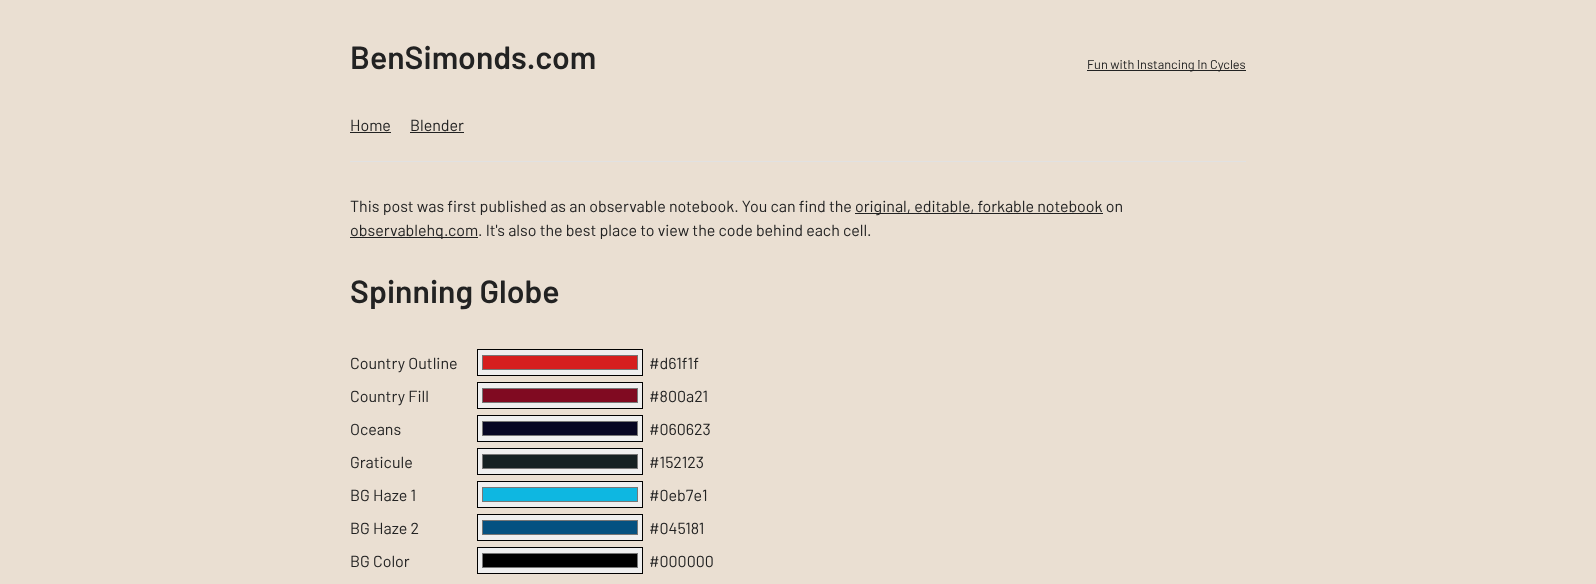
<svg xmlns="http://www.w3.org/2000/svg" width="1596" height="584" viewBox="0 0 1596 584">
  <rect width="100%" height="100%" fill="rgb(234,223,210)"/>
  <text x="350" y="69" font-family="Barlow" font-size="32" font-weight="600" fill="rgb(34,34,34)">BenSimonds.com</text>
  <rect x="1087" y="70" width="159" height="1" fill="rgb(34,34,34)"/>
  <text x="1087" y="69" font-family="Barlow" font-size="12.75" fill="rgb(34,34,34)">Fun with Instancing In Cycles</text>
  <text x="350" y="131" font-family="Barlow" font-size="16" fill="rgb(34,34,34)">Home</text>
  <rect x="350" y="132" width="41" height="1" fill="rgb(34,34,34)"/>
  <text x="410" y="131" font-family="Barlow" font-size="16" fill="rgb(34,34,34)">Blender</text>
  <rect x="410" y="132" width="54" height="1" fill="rgb(34,34,34)"/>
  <rect x="350" y="161" width="896" height="1" fill="rgb(225,225,225)"/>
  <text x="350" y="212" font-family="Barlow" font-size="16" fill="rgb(34,34,34)">This post was first published as an observable notebook. You can find the</text>
  <rect x="855" y="213" width="248" height="1" fill="rgb(34,34,34)"/>
  <text x="855" y="212" font-family="Barlow" font-size="16" fill="rgb(34,34,34)">original, editable, forkable notebook on</text>
  <rect x="350" y="237" width="128" height="1" fill="rgb(34,34,34)"/>
  <g font-family="Barlow" font-size="16" fill="rgb(34,34,34)">
    <text x="350" y="236">observablehq.com</text>
    <text x="478" y="236">. It's also the best place to view the code behind each cell.</text>
  </g>
  <text x="350" y="303" font-family="Barlow" font-size="32" font-weight="600" fill="rgb(34,34,34)">Spinning Globe</text>
  <text x="350" y="369" font-family="Barlow" font-size="16" fill="rgb(34,34,34)">Country Outline</text>
  <rect x="477.5" y="349.5" width="165" height="26" fill="rgb(239,239,239)" stroke="rgb(0,0,0)"/>
  <rect x="482.5" y="355.5" width="155" height="14" fill="rgb(214,31,31)" stroke="rgb(119,119,119)"/>
  <g font-family="Barlow" font-size="16" fill="rgb(34,34,34)">
    <text x="649" y="369">#d61f1f</text>
    <text x="350" y="402">Country Fill</text>
  </g>
  <rect x="477.5" y="382.5" width="165" height="26" fill="rgb(239,239,239)" stroke="rgb(0,0,0)"/>
  <rect x="482.5" y="388.5" width="155" height="14" fill="rgb(128,10,33)" stroke="rgb(119,119,119)"/>
  <g font-family="Barlow" font-size="16" fill="rgb(34,34,34)">
    <text x="649" y="402">#800a21</text>
    <text x="350" y="435">Oceans</text>
  </g>
  <rect x="477.5" y="415.5" width="165" height="26" fill="rgb(239,239,239)" stroke="rgb(0,0,0)"/>
  <rect x="482.5" y="421.5" width="155" height="14" fill="rgb(6,6,35)" stroke="rgb(119,119,119)"/>
  <g font-family="Barlow" font-size="16" fill="rgb(34,34,34)">
    <text x="649" y="435">#060623</text>
    <text x="350" y="468">Graticule</text>
  </g>
  <rect x="477.5" y="448.5" width="165" height="26" fill="rgb(239,239,239)" stroke="rgb(0,0,0)"/>
  <rect x="482.5" y="454.5" width="155" height="14" fill="rgb(21,33,35)" stroke="rgb(119,119,119)"/>
  <g font-family="Barlow" font-size="16" fill="rgb(34,34,34)">
    <text x="649" y="468">#152123</text>
    <text x="350" y="501">BG Haze 1</text>
  </g>
  <rect x="477.5" y="481.5" width="165" height="26" fill="rgb(239,239,239)" stroke="rgb(0,0,0)"/>
  <rect x="482.5" y="487.5" width="155" height="14" fill="rgb(14,183,225)" stroke="rgb(119,119,119)"/>
  <g font-family="Barlow" font-size="16" fill="rgb(34,34,34)">
    <text x="649" y="501">#0eb7e1</text>
    <text x="350" y="534">BG Haze 2</text>
  </g>
  <rect x="477.5" y="514.5" width="165" height="26" fill="rgb(239,239,239)" stroke="rgb(0,0,0)"/>
  <rect x="482.5" y="520.5" width="155" height="14" fill="rgb(4,81,129)" stroke="rgb(119,119,119)"/>
  <g font-family="Barlow" font-size="16" fill="rgb(34,34,34)">
    <text x="649" y="534">#045181</text>
    <text x="350" y="567">BG Color</text>
  </g>
  <rect x="477.5" y="547.5" width="165" height="26" fill="rgb(239,239,239)" stroke="rgb(0,0,0)"/>
  <rect x="482.5" y="553.5" width="155" height="14" fill="rgb(0,0,0)" stroke="rgb(119,119,119)"/>
  <text x="649" y="567" font-family="Barlow" font-size="16" fill="rgb(34,34,34)">#000000</text>
</svg>
